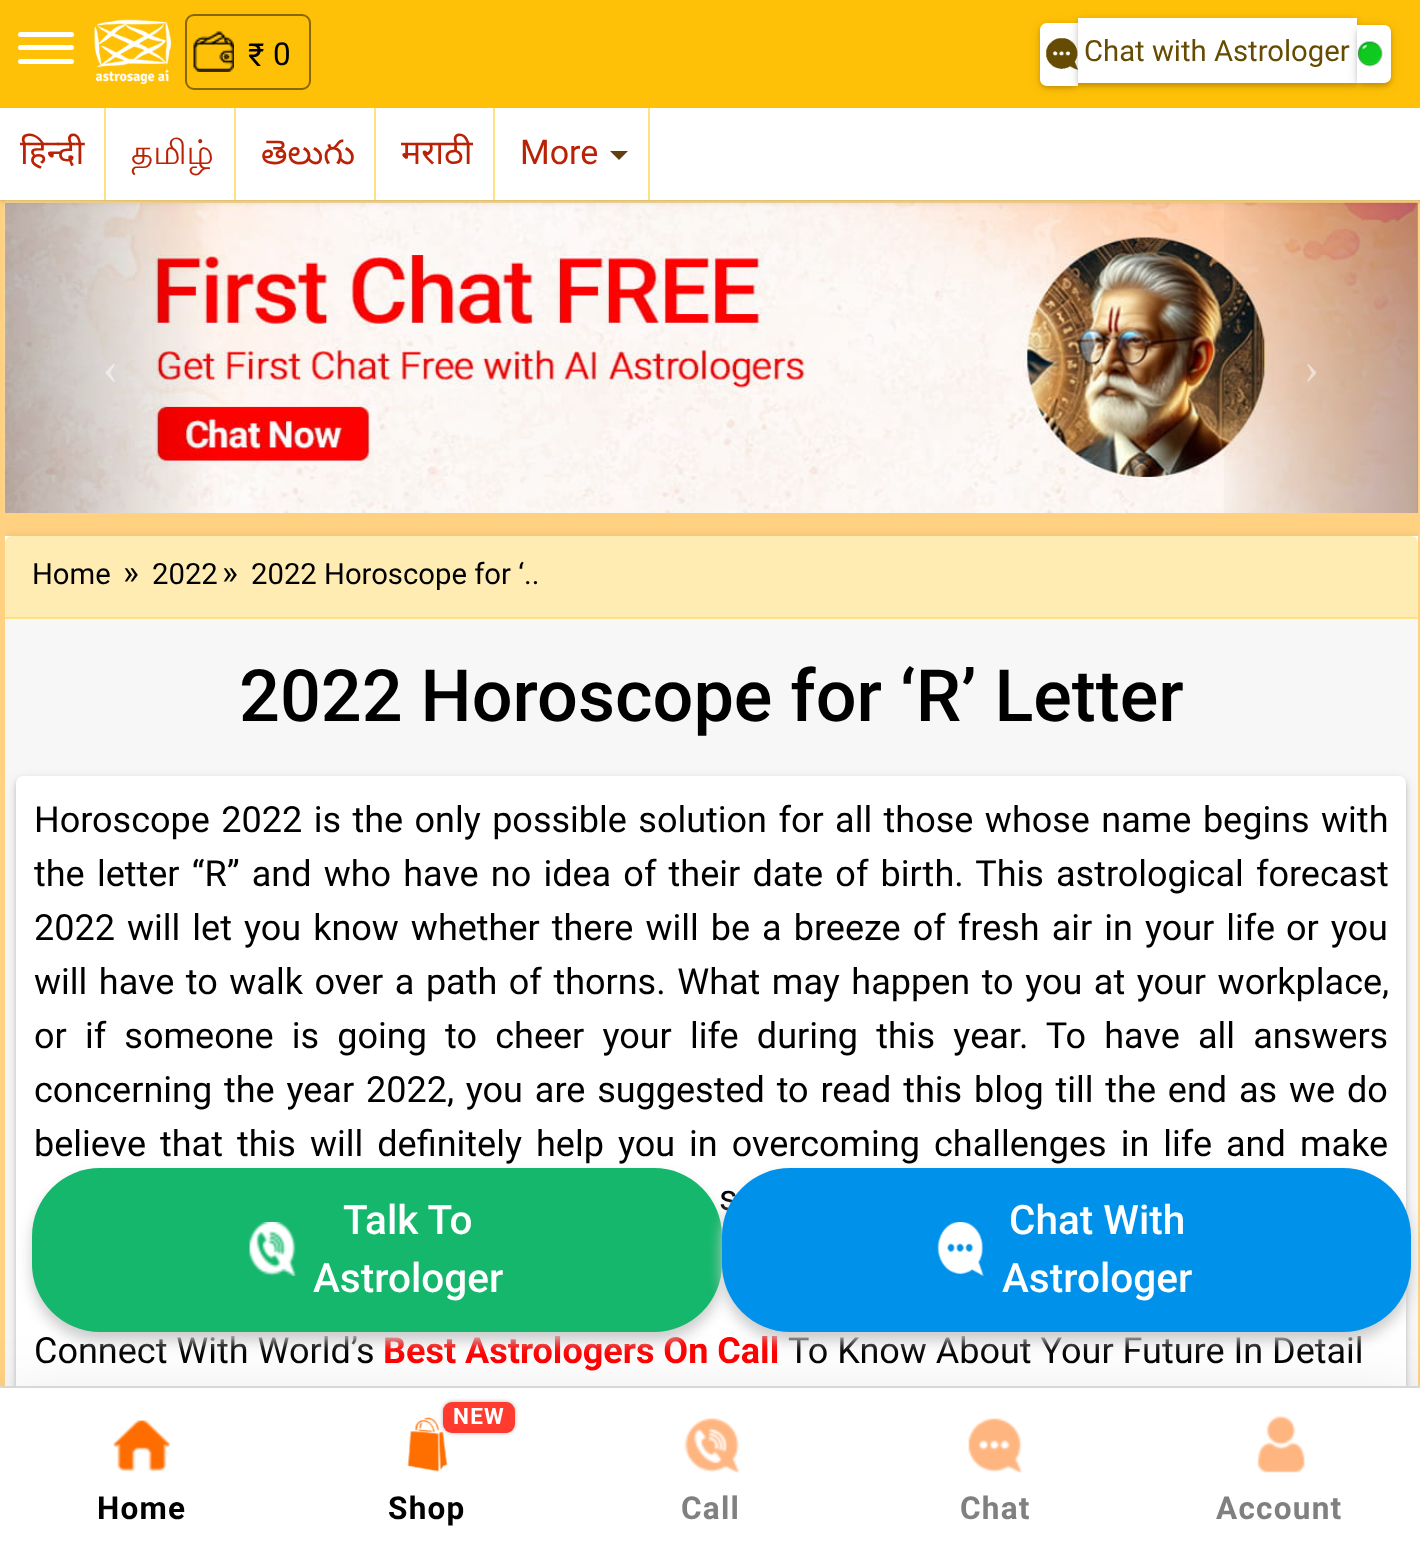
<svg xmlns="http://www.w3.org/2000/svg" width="1420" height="1556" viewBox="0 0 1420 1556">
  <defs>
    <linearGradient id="g1" gradientUnits="userSpaceOnUse" x1="1206" y1="358" x2="1418" y2="358"><stop offset="0" stop-color="rgb(0,0,0)" stop-opacity="0"/><stop offset="1" stop-color="rgb(0,0,0)" stop-opacity="0.25"/></linearGradient>
    <clipPath id="clip1"><rect x="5" y="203" width="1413" height="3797"/></clipPath>
  </defs>
  <rect width="100%" height="100%" fill="rgb(255,209,128)"/>
  <rect x="5" y="200" width="1413" height="2" fill="rgb(255,224,130)"/>
  <image x="4" y="202" width="1414" height="311" href="pic5.png"/>
  <rect x="1224" y="203" width="194" height="310" fill="url(#g1)"/>
  <rect x="0" y="2" width="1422" height="198" fill="rgba(0,0,0,0.12)" filter="blur(5.5px)"/>
  <rect x="0" y="2" width="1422" height="198" fill="rgba(0,0,0,0.16)" filter="blur(2px)"/>
  <rect x="0" y="0" width="1420" height="108" fill="rgb(255,193,7)"/>
  <rect x="18" y="32" width="56" height="5" rx="2.5" fill="rgb(255,255,255)"/>
  <rect x="18" y="45" width="56" height="5" rx="2.5" fill="rgb(255,255,255)"/>
  <rect x="18" y="59" width="56" height="5" rx="2.5" fill="rgb(255,255,255)"/>
  <image x="94" y="19" width="77" height="65" href="pic1.png"/>
  <rect x="186" y="15" width="124" height="74" rx="8" fill="none" stroke="rgb(136,103,4)" stroke-width="2"/>
  <image x="193" y="31" width="41" height="41" href="pic2.png"/>
  <g font-family="Roboto" font-size="31.5" fill="rgb(0,0,0)">
    <text x="248" y="66">₹</text>
    <text x="273" y="65">0</text>
  </g>
  <rect x="1040" y="25" width="38" height="63" rx="7" fill="rgba(0,0,0,0.12)" filter="blur(5.5px)"/>
  <rect x="1040" y="25" width="38" height="63" rx="7" fill="rgba(0,0,0,0.16)" filter="blur(2px)"/>
  <path d="M1047 23H1078V86H1047C1043 86 1040 83 1040 79V30C1040 26 1043 23 1047 23Z" fill="rgb(255,255,255)"/>
  <rect x="1078" y="20" width="279" height="66" fill="rgba(0,0,0,0.12)" filter="blur(5.5px)"/>
  <rect x="1078" y="20" width="279" height="66" fill="rgba(0,0,0,0.16)" filter="blur(2px)"/>
  <rect x="1078" y="18" width="279" height="65" fill="rgb(255,255,255)"/>
  <rect x="1357" y="27" width="34" height="59" rx="7" fill="rgba(0,0,0,0.12)" filter="blur(5.5px)"/>
  <rect x="1357" y="27" width="34" height="59" rx="7" fill="rgba(0,0,0,0.16)" filter="blur(2px)"/>
  <path d="M1357 25H1384C1388 25 1391 28 1391 32V76C1391 80 1388 83 1384 83H1357Z" fill="rgb(255,255,255)"/>
  <image x="1046" y="38" width="32" height="32" href="pic3.png"/>
  <text x="1084" y="61" font-family="Roboto" font-size="29.25" fill="rgb(101,76,2)">Chat with Astrologer</text>
  <image x="1357" y="41" width="26" height="26" href="pic4.png"/>
  <rect x="0" y="108" width="1420" height="92" fill="rgb(255,255,255)"/>
  <rect x="104" y="108" width="2" height="92" fill="rgb(255,224,130)"/>
  <text x="20" y="164" font-family="Noto Sans" font-size="34" fill="rgb(185,34,4)">हिन्दी</text>
  <rect x="234" y="108" width="2" height="92" fill="rgb(255,224,130)"/>
  <text x="131" y="164" font-family="Lohit Tamil" font-size="34" fill="rgb(185,34,4)">தமிழ்</text>
  <rect x="374" y="108" width="2" height="92" fill="rgb(255,224,130)"/>
  <text x="261" y="164" font-family="Noto Sans Telugu" font-size="34" fill="rgb(185,34,4)">తెలుగు</text>
  <rect x="493" y="108" width="2" height="92" fill="rgb(255,224,130)"/>
  <text x="401" y="164" font-family="Noto Sans" font-size="34" fill="rgb(185,34,4)">मराठी</text>
  <rect x="648" y="108" width="2" height="92" fill="rgb(255,224,130)"/>
  <text x="520" y="164" font-family="Roboto" font-size="34" fill="rgb(185,34,4)">More</text>
  <path d="M610 151H628L619 160Z" fill="rgb(100,64,16)"/>
  <text x="103" y="383" font-family="Liberation Serif" font-size="45" fill="rgb(238,235,233)">‹</text>
  <text x="1304" y="383" font-family="Liberation Serif" font-size="45" fill="rgb(239,222,210)">›</text>
  <g clip-path="url(#clip1)">
    <rect x="5" y="538" width="1413" height="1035" fill="rgba(0,0,0,0.12)" filter="blur(5.5px)"/>
  </g>
  <rect x="5" y="536" width="1413" height="7" fill="rgb(255,255,255)"/>
  <path d="M12 536H1411C1415 536 1418 539 1418 543V619H5V543C5 539 8 536 12 536Z" fill="rgb(255,236,179)"/>
  <rect x="5" y="617" width="1413" height="2" fill="rgb(255,224,130)"/>
  <text x="32" y="584" font-family="Roboto" font-size="29.25" fill="rgb(0,0,0)">Home</text>
  <text x="123" y="584" font-family="Roboto" font-size="34" fill="rgb(0,0,0)">»</text>
  <text x="152" y="584" font-family="Roboto" font-size="29.25" fill="rgb(0,0,0)">2022</text>
  <text x="222" y="584" font-family="Roboto" font-size="34" fill="rgb(0,0,0)">»</text>
  <text x="251" y="584" font-family="Roboto" font-size="29.25" fill="rgb(0,0,0)">2022 Horoscope for ‘..</text>
  <rect x="5" y="619" width="1413" height="767" fill="rgb(247,247,247)"/>
  <text x="239" y="721" font-family="Roboto" font-size="72" font-weight="500" fill="rgb(0,0,0)">2022 Horoscope for ‘R’ Letter</text>
  <rect x="16" y="779" width="1390" height="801" rx="7" fill="rgba(0,0,0,0.12)" filter="blur(5.5px)"/>
  <rect x="16" y="779" width="1390" height="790" rx="7" fill="rgba(0,0,0,0.16)" filter="blur(2px)"/>
  <rect x="16" y="776" width="1390" height="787" rx="7" fill="rgb(255,255,255)"/>
  <g font-family="Roboto" font-size="36" fill="rgb(0,0,0)">
    <text>
      <tspan x="34" y="832" word-spacing="2.5">Horoscope 2022 is the only possible solution for all those whose name begins with</tspan>
      <tspan x="34" y="886" word-spacing="3.25">the letter “R” and who have no idea of their date of birth. This astrological forecast</tspan>
      <tspan x="34" y="940" word-spacing="3.1">2022 will let you know whether there will be a breeze of fresh air in your life</tspan>
    </text>
    <text x="1286" y="940" word-spacing="3.1">or you</text>
    <text>
      <tspan x="34" y="994" word-spacing="2.6">will have to walk over a path of thorns. What may happen to you at your workplace,</tspan>
      <tspan x="34" y="1048" word-spacing="9.25">or if someone is going to cheer your life during this year. To have all answers</tspan>
      <tspan x="34" y="1102" word-spacing="2.9">concerning the year 2022, you are suggested to read this blog till the end as we</tspan>
    </text>
    <text x="1347" y="1102">do</text>
    <text x="34" y="1156" word-spacing="5.1">believe that this will definitely help you in overcoming challenges in life and</text>
    <text x="1300" y="1156">make</text>
    <text x="719" y="1210">s</text>
    <text x="34" y="1363">Connect With World’s</text>
  </g>
  <text x="383" y="1363" font-family="Roboto" font-size="36" font-weight="bold" fill="rgb(255,0,0)">Best Astrologers On Call</text>
  <text x="788" y="1363" font-family="Roboto" font-size="36" fill="rgb(0,0,0)">To Know About Your Future In Detail</text>
  <rect x="32" y="1177" width="690" height="164" rx="68" fill="rgb(204,204,204)" filter="blur(7px)"/>
  <rect x="32" y="1168" width="690" height="164" rx="68" fill="rgb(21,183,108)"/>
  <image x="249" y="1222" width="47" height="54" href="pic6.png"/>
  <g font-family="Roboto" font-size="40.5" font-weight="500" fill="rgb(255,255,255)">
    <text x="343" y="1234">Talk To</text>
    <text x="313" y="1292">Astrologer</text>
  </g>
  <rect x="722" y="1177" width="689" height="164" rx="68" fill="rgb(204,204,204)" filter="blur(7px)"/>
  <rect x="722" y="1168" width="689" height="164" rx="68" fill="rgb(0,145,234)"/>
  <image x="937" y="1222" width="47" height="54" href="pic7.png"/>
  <g font-family="Roboto" font-size="40.5" font-weight="500" fill="rgb(255,255,255)">
    <text x="1009" y="1234">Chat With</text>
    <text x="1002" y="1292">Astrologer</text>
  </g>
  <rect x="0" y="1402" width="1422" height="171" fill="rgba(100,100,111,0.2)" filter="blur(32.5px)"/>
  <rect x="0" y="1388" width="1420" height="168" fill="rgb(255,255,255)"/>
  <rect x="0" y="1386" width="1420" height="2" fill="rgb(215,215,215)"/>
  <image x="113" y="1420" width="57" height="52" href="pic8.png"/>
  <text x="97" y="1519" font-family="Roboto" font-size="31.5" font-weight="bold" letter-spacing="1.25" fill="rgb(0,0,0)">Home</text>
  <image x="407" y="1417" width="41" height="55" href="pic9.png"/>
  <rect x="443" y="1402" width="72" height="31" rx="9" fill="rgba(0,0,0,0.3)" filter="blur(2px)"/>
  <rect x="443" y="1402" width="72" height="31" rx="9" fill="rgb(255,59,48)"/>
  <text x="453" y="1424" font-family="Roboto" font-size="22.5" font-weight="bold" letter-spacing="1.25" fill="rgb(255,255,255)">NEW</text>
  <text x="388" y="1519" font-family="Roboto" font-size="31.5" font-weight="bold" letter-spacing="1.25" fill="rgb(0,0,0)">Shop</text>
  <image x="684" y="1418" width="56" height="55" href="pic10.png"/>
  <text x="681" y="1519" font-family="Roboto" font-size="31.5" font-weight="bold" letter-spacing="1.25" fill="rgb(128,128,128)">Call</text>
  <image x="968" y="1418" width="55" height="55" href="pic11.png"/>
  <text x="960" y="1519" font-family="Roboto" font-size="31.5" font-weight="bold" letter-spacing="1.25" fill="rgb(128,128,128)">Chat</text>
  <image x="1257" y="1416" width="48" height="57" href="pic12.png"/>
  <text x="1216" y="1519" font-family="Roboto" font-size="31.5" font-weight="bold" letter-spacing="1.25" fill="rgb(128,128,128)">Account</text>
</svg>
